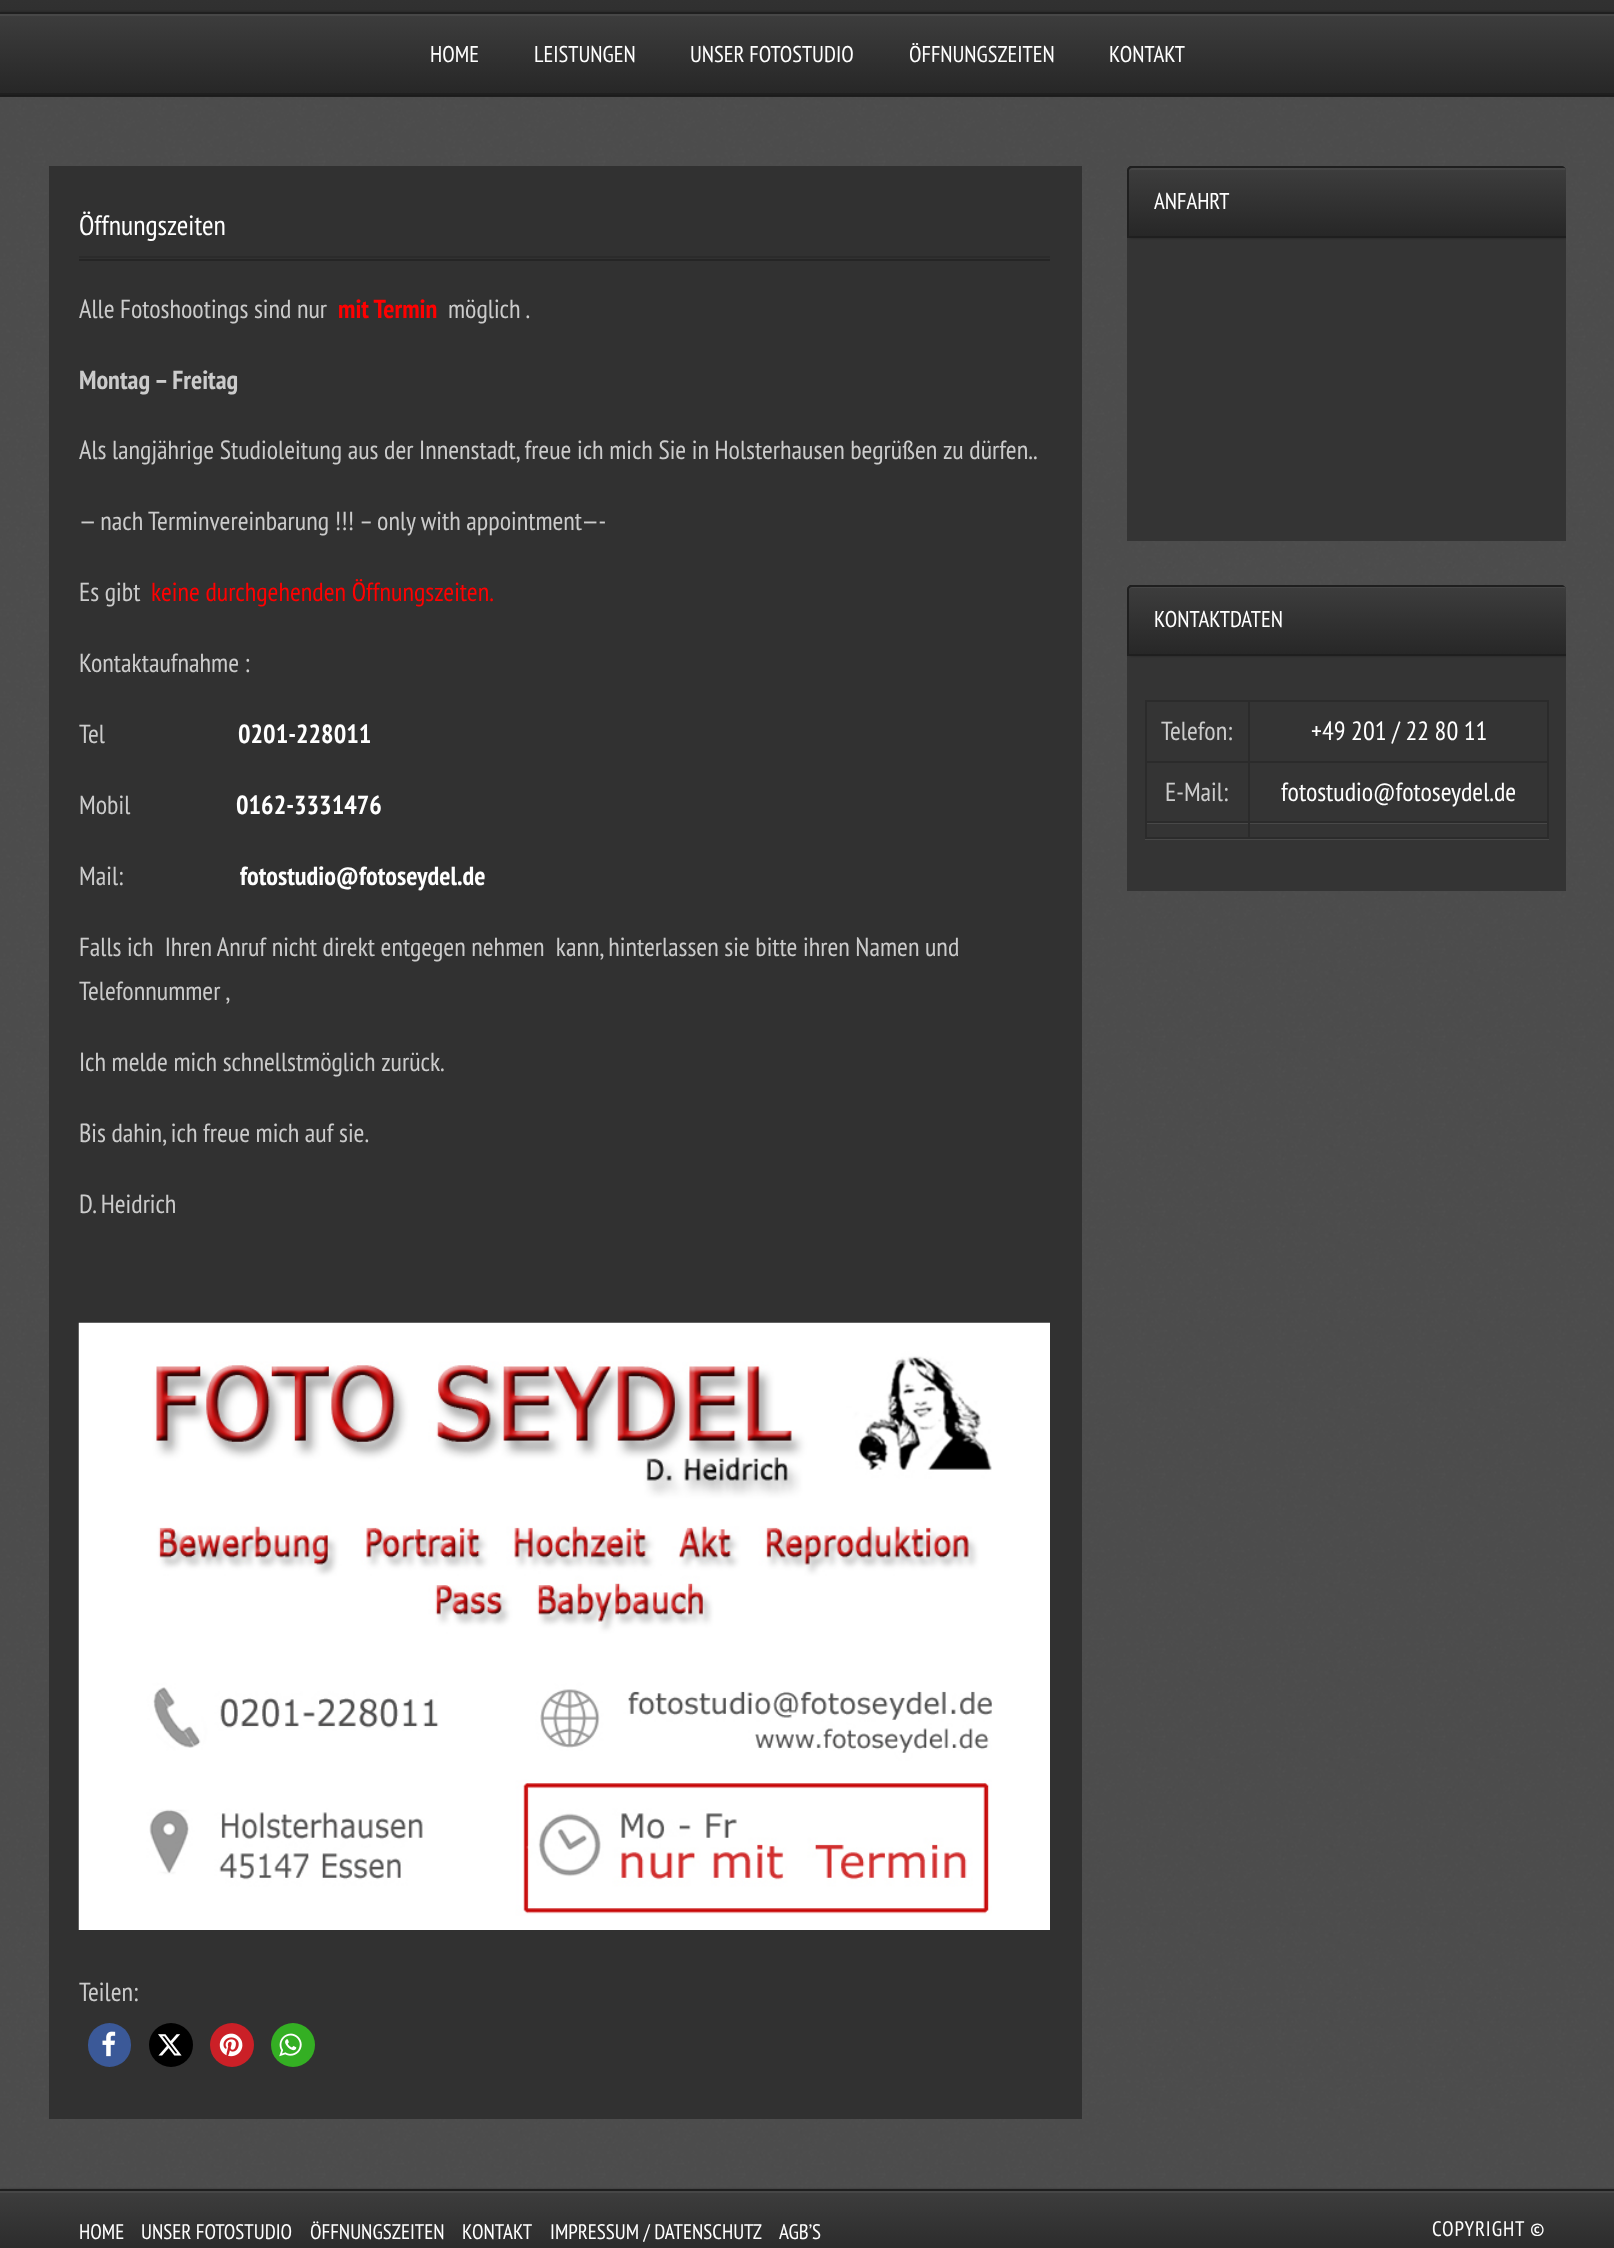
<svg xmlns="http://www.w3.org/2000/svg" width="1614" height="2248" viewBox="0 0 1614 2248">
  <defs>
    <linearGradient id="g1" gradientUnits="userSpaceOnUse" x1="808" y1="-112" x2="808" y2="95"><stop offset="0" stop-color="rgb(61,61,61)"/><stop offset="1" stop-color="rgb(39,39,39)"/></linearGradient>
    <linearGradient id="g2" gradientUnits="userSpaceOnUse" x1="808" y1="14" x2="808" y2="93"><stop offset="0" stop-color="rgb(61,61,61)"/><stop offset="1" stop-color="rgb(39,39,39)"/></linearGradient>
    <clipPath id="clip1"><path d="M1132 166H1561C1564 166 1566 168 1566 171V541H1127V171C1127 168 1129 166 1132 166Z"/></clipPath>
    <clipPath id="clip2"><path d="M1132 166H1561C1564 166 1566 168 1566 171V541H1127V171C1127 168 1129 166 1132 166Z"/></clipPath>
    <linearGradient id="g3" gradientUnits="userSpaceOnUse" x1="1348" y1="168" x2="1348" y2="236"><stop offset="0" stop-color="rgb(61,61,61)"/><stop offset="1" stop-color="rgb(39,39,39)"/></linearGradient>
    <clipPath id="clip3"><path d="M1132 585H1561C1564 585 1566 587 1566 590V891H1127V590C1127 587 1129 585 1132 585Z"/></clipPath>
    <clipPath id="clip4"><path d="M1132 585H1561C1564 585 1566 587 1566 590V891H1127V590C1127 587 1129 585 1132 585Z"/></clipPath>
    <clipPath id="clip5"><path d="M1132 585H1565C1568 585 1570 587 1570 590V656H1127V590C1127 587 1129 585 1132 585Z"/></clipPath>
    <linearGradient id="g4" gradientUnits="userSpaceOnUse" x1="1348" y1="586" x2="1348" y2="655"><stop offset="0" stop-color="rgb(61,61,61)"/><stop offset="1" stop-color="rgb(39,39,39)"/></linearGradient>
    <linearGradient id="g5" gradientUnits="userSpaceOnUse" x1="808" y1="2191" x2="808" y2="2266"><stop offset="0" stop-color="rgb(61,61,61)"/><stop offset="1" stop-color="rgb(39,39,39)"/></linearGradient>
  </defs>
  <rect width="100%" height="100%" fill="rgb(106,106,106)"/>
  <image x="0" y="97" width="1614" height="2092" href="pic1.png"/>
  <rect x="0" y="0" width="1614" height="12" fill="url(#g1)"/>
  <rect x="0" y="95" width="1614" height="2" fill="rgb(31,31,31)"/>
  <rect x="0" y="12" width="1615" height="83" fill="rgba(0,0,0,0.3)" filter="blur(1px)"/>
  <rect x="0" y="16" width="1614" height="77" fill="url(#g2)"/>
  <rect x="0" y="14" width="1614" height="2" fill="rgb(71,71,71)"/>
  <rect x="0" y="12" width="1614" height="2" fill="rgb(31,31,31)"/>
  <rect x="0" y="93" width="1614" height="2" fill="rgb(31,31,31)"/>
  <g font-family="PT Sans Narrow" font-size="22.75" fill="rgb(255,255,255)">
    <text x="430" y="62">HOME</text>
    <text x="534" y="62">LEISTUNGEN</text>
    <text x="690" y="62">UNSER FOTOSTUDIO</text>
    <text x="909" y="62">ÖFFNUNGSZEITEN</text>
    <text x="1109" y="62">KONTAKT</text>
  </g>
  <rect x="49" y="166" width="1033" height="1953" fill="rgb(49,49,49)"/>
  <text x="79" y="235" font-family="PT Sans Narrow" font-size="28" fill="rgb(255,255,255)">Öffnungszeiten</text>
  <rect x="79" y="256" width="971" height="2" fill="rgb(43,43,43)"/>
  <rect x="79" y="259" width="971" height="2" fill="rgb(37,37,37)"/>
  <text x="79" y="318" font-family="PT Sans Narrow" font-size="26.25" fill="rgb(203,203,203)">Alle Fotoshootings sind nur</text>
  <text x="338" y="318" font-family="PT Sans Narrow" font-size="26.25" font-weight="bold" fill="rgb(255,0,0)">mit Termin</text>
  <text x="448" y="318" font-family="PT Sans Narrow" font-size="26.25" fill="rgb(203,203,203)">möglich .</text>
  <text x="79" y="389" font-family="PT Sans Narrow" font-size="26.25" font-weight="bold" fill="rgb(203,203,203)">Montag – Freitag</text>
  <g font-family="PT Sans Narrow" font-size="26.25" fill="rgb(203,203,203)">
    <text x="79" y="459">Als langjährige Studioleitung aus der Innenstadt, freue ich mich Sie in Holsterhausen begrüßen zu dürfen..</text>
    <text x="79" y="530">— nach Terminvereinbarung !!! – only with appointment—-</text>
    <text x="79" y="601">Es gibt</text>
  </g>
  <text x="151" y="601" font-family="PT Sans Narrow" font-size="26.25" fill="rgb(255,0,0)">keine durchgehenden Öffnungszeiten.</text>
  <g font-family="PT Sans Narrow" font-size="26.25" fill="rgb(203,203,203)">
    <text x="79" y="672">Kontaktaufnahme :</text>
    <text x="79" y="743">Tel</text>
  </g>
  <text x="238" y="743" font-family="PT Sans Narrow" font-size="26.25" font-weight="bold" fill="rgb(255,255,255)">0201-228011</text>
  <text x="79" y="814" font-family="PT Sans Narrow" font-size="26.25" fill="rgb(203,203,203)">Mobil</text>
  <text x="236" y="814" font-family="PT Sans Narrow" font-size="26.25" font-weight="bold" fill="rgb(255,255,255)">0162-3331476</text>
  <text x="79" y="885" font-family="PT Sans Narrow" font-size="26.25" fill="rgb(203,203,203)">Mail:</text>
  <text x="240" y="885" font-family="PT Sans Narrow" font-size="26.25" font-weight="bold" fill="rgb(255,255,255)">fotostudio@fotoseydel.de</text>
  <g font-family="PT Sans Narrow" font-size="26.25" fill="rgb(203,203,203)">
    <text xml:space="preserve"><tspan x="79" y="956">Falls ich  Ihren Anruf nicht direkt entgegen nehmen  kann, hinterlassen sie bitte ihren Namen und</tspan><tspan x="79" y="1000">Telefonnummer ,</tspan></text>
    <text x="79" y="1071">Ich melde mich schnellstmöglich zurück.</text>
    <text x="79" y="1142">Bis dahin, ich freue mich auf sie.</text>
    <text x="79" y="1213">D. Heidrich</text>
  </g>
  <image x="78" y="1322" width="972" height="608" href="pic2.png"/>
  <text x="79" y="2001" font-family="PT Sans Narrow" font-size="26.25" fill="rgb(203,203,203)">Teilen:</text>
  <rect x="88" y="2023" width="43" height="44" rx="21.5" fill="rgb(59,89,152)"/>
  <image x="102" y="2031" width="14" height="26" href="pic3.png"/>
  <circle cx="171" cy="2045" r="22" fill="rgb(0,0,0)"/>
  <image x="158" y="2034" width="24" height="22" href="pic4.png"/>
  <circle cx="232" cy="2045" r="22" fill="rgb(203,32,39)"/>
  <image x="219" y="2033" width="24" height="24" href="pic5.png"/>
  <circle cx="293" cy="2045" r="22" fill="rgb(52,175,35)"/>
  <image x="279" y="2033" width="23" height="24" href="pic6.png"/>
  <path d="M1132 166H1561C1564 166 1566 168 1566 171V541H1127V171C1127 168 1129 166 1132 166Z" fill="rgb(52,52,52)"/>
  <g clip-path="url(#clip1)">
    <rect x="1127" y="166" width="443" height="72" rx="5" fill="rgba(0,0,0,0.3)" filter="blur(1px)"/>
  </g>
  <g clip-path="url(#clip2)">
    <rect x="1127" y="168" width="439" height="68" fill="url(#g3)"/>
  </g>
  <path d="M1132 170H1566L1565 168H1133C1130 168 1129 170 1129 173C1129 171 1130 170 1132 170Z" fill="rgba(255,255,255,0.05)"/>
  <path d="M1132 166C1129 166 1127 168 1127 171V238H1566V236H1129V171C1129 169 1130 168 1132 168H1565C1564 167 1563 166 1561 166Z" fill="rgb(31,31,31)"/>
  <text x="1154" y="209" font-family="PT Sans Narrow" font-size="22.75" fill="rgb(255,255,255)">ANFAHRT</text>
  <path d="M1132 585H1561C1564 585 1566 587 1566 590V891H1127V590C1127 587 1129 585 1132 585Z" fill="rgb(52,52,52)"/>
  <g clip-path="url(#clip3)">
    <rect x="1127" y="585" width="443" height="71" rx="5" fill="rgba(0,0,0,0.3)" filter="blur(1px)"/>
  </g>
  <g clip-path="url(#clip4)">
    <g clip-path="url(#clip5)">
      <rect x="1127" y="586" width="439" height="68" fill="url(#g4)"/>
    </g>
  </g>
  <path d="M1132 588H1564L1566 589L1564 586H1133C1131 586 1129 588 1129 590V592C1129 590 1130 588 1132 588Z" fill="rgb(71,71,71)"/>
  <path d="M1132 585C1129 585 1127 587 1127 590V656H1566V654H1129V590C1129 588 1130 587 1132 587H1565C1564 586 1563 585 1561 585Z" fill="rgb(31,31,31)"/>
  <text x="1154" y="627" font-family="PT Sans Narrow" font-size="22.75" fill="rgb(255,255,255)">KONTAKTDATEN</text>
  <rect x="1248" y="700" width="301" height="2" fill="rgb(43,43,43)"/>
  <rect x="1248" y="761" width="301" height="2" fill="rgb(43,43,43)"/>
  <path d="M1145 822V824H1250V763V822Z" fill="rgb(72,72,72)"/>
  <path d="M1250 822V824H1549V763V822Z" fill="rgb(72,72,72)"/>
  <rect x="1248" y="821" width="301" height="2" fill="rgb(43,43,43)"/>
  <path d="M1145 838V840H1250V824V838Z" fill="rgb(72,72,72)"/>
  <path d="M1250 838V840H1549V824V838Z" fill="rgb(72,72,72)"/>
  <rect x="1547" y="821" width="2" height="17" fill="rgb(43,43,43)"/>
  <rect x="1248" y="837" width="301" height="2" fill="rgb(43,43,43)"/>
  <rect x="1248" y="821" width="2" height="17" fill="rgb(43,43,43)"/>
  <rect x="1145" y="821" width="105" height="2" fill="rgb(43,43,43)"/>
  <rect x="1248" y="761" width="2" height="62" fill="rgb(43,43,43)"/>
  <rect x="1145" y="761" width="105" height="2" fill="rgb(43,43,43)"/>
  <rect x="1248" y="700" width="2" height="63" fill="rgb(43,43,43)"/>
  <rect x="1145" y="700" width="105" height="2" fill="rgb(43,43,43)"/>
  <rect x="1145" y="837" width="105" height="2" fill="rgb(43,43,43)"/>
  <rect x="1145" y="821" width="2" height="17" fill="rgb(43,43,43)"/>
  <rect x="1145" y="761" width="2" height="62" fill="rgb(43,43,43)"/>
  <rect x="1145" y="700" width="2" height="63" fill="rgb(43,43,43)"/>
  <text x="1161" y="740" font-family="PT Sans Narrow" font-size="26.25" fill="rgb(203,203,203)">Telefon:</text>
  <rect x="1547" y="761" width="2" height="62" fill="rgb(43,43,43)"/>
  <rect x="1547" y="700" width="2" height="63" fill="rgb(43,43,43)"/>
  <text x="1311" y="740" font-family="PT Sans Narrow" font-size="26.25" fill="rgb(255,255,255)">+49 201 / 22 80 11</text>
  <text x="1165" y="801" font-family="PT Sans Narrow" font-size="26.25" fill="rgb(203,203,203)">E-Mail:</text>
  <text x="1281" y="801" font-family="PT Sans Narrow" font-size="26.25" fill="rgb(255,255,255)">fotostudio@fotoseydel.de</text>
  <rect x="0" y="2189" width="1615" height="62" fill="rgba(0,0,0,0.3)" filter="blur(1px)"/>
  <rect x="0" y="2193" width="1614" height="55" fill="url(#g5)"/>
  <rect x="0" y="2191" width="1614" height="2" fill="rgb(71,71,71)"/>
  <rect x="0" y="2189" width="1614" height="2" fill="rgb(31,31,31)"/>
  <g font-family="PT Sans Narrow" font-size="21" fill="rgb(255,255,255)">
    <text x="79" y="2239">HOME</text>
    <text x="141" y="2239">UNSER FOTOSTUDIO</text>
    <text x="310" y="2239">ÖFFNUNGSZEITEN</text>
    <text x="462" y="2239">KONTAKT</text>
    <text x="550" y="2239">IMPRESSUM / DATENSCHUTZ</text>
    <text x="779" y="2239">AGB’S</text>
  </g>
  <text x="1432" y="2236" font-family="PT Sans Narrow" font-size="21" letter-spacing="0.9" fill="rgb(255,255,255)">COPYRIGHT ©</text>
</svg>
